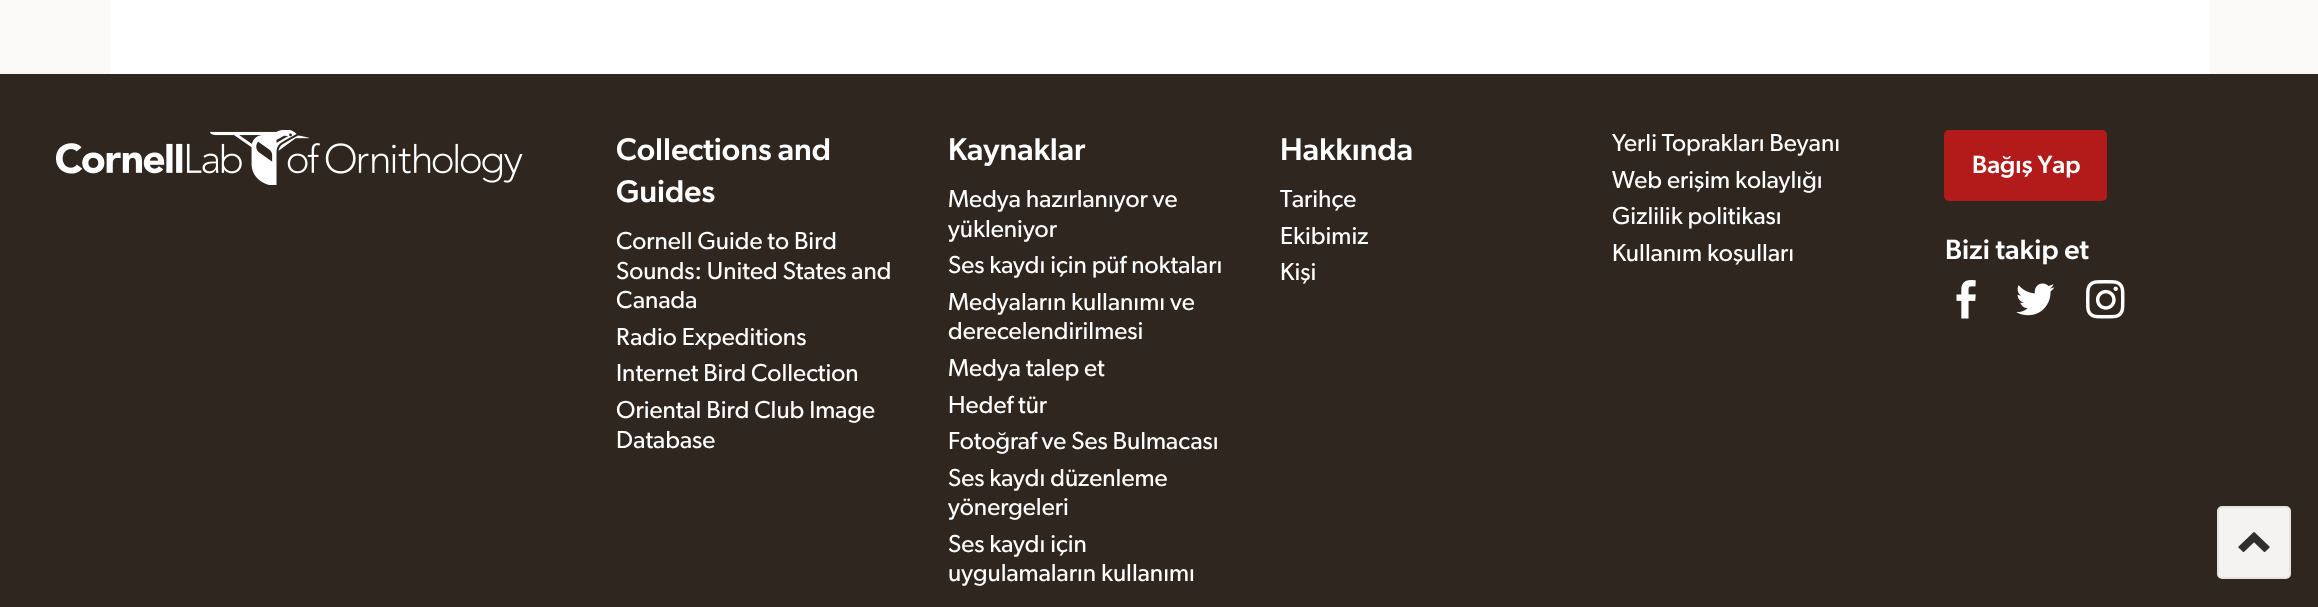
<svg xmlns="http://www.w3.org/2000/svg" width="2318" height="607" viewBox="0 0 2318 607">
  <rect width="100%" height="100%" fill="rgb(250,249,247)"/>
  <rect x="110" y="0" width="2100" height="74" fill="rgb(255,255,255)"/>
  <rect x="0" y="74" width="2318" height="533" fill="rgb(46,38,31)"/>
  <image x="56" y="130" width="467" height="55" href="pic1.png"/>
  <g font-family="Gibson" font-size="31.5" font-weight="500" fill="rgb(255,255,255)">
    <text>
      <tspan x="616" y="160">Collections and</tspan>
      <tspan x="616" y="202">Guides</tspan>
    </text>
  </g>
  <g font-family="Gibson" font-size="24.6" fill="rgb(255,255,255)">
    <text>
      <tspan x="616" y="249">Cornell Guide to Bird</tspan>
      <tspan x="616" y="279">Sounds: United States and</tspan>
      <tspan x="616" y="308">Canada</tspan>
      <tspan x="616" y="345">Radio Expeditions</tspan>
      <tspan x="616" y="381">Internet Bird Collection</tspan>
      <tspan x="616" y="418">Oriental Bird Club Image</tspan>
      <tspan x="616" y="448">Database</tspan>
    </text>
  </g>
  <text x="948" y="160" font-family="Gibson" font-size="31.5" font-weight="500" fill="rgb(255,255,255)">Kaynaklar</text>
  <g font-family="Gibson" font-size="24.6" fill="rgb(255,255,255)">
    <text>
      <tspan x="948" y="207">Medya hazırlanıyor ve</tspan>
      <tspan x="948" y="237">yükleniyor</tspan>
      <tspan x="948" y="273">Ses kaydı için püf noktaları</tspan>
      <tspan x="948" y="310">Medyaların kullanımı ve</tspan>
      <tspan x="948" y="339">derecelendirilmesi</tspan>
      <tspan x="948" y="376">Medya talep et</tspan>
      <tspan x="948" y="413">Hedef tür</tspan>
      <tspan x="948" y="449">Fotoğraf ve Ses Bulmacası</tspan>
      <tspan x="948" y="486">Ses kaydı düzenleme</tspan>
      <tspan x="948" y="515">yönergeleri</tspan>
      <tspan x="948" y="552">Ses kaydı için</tspan>
      <tspan x="948" y="581">uygulamaların kullanımı</tspan>
    </text>
  </g>
  <text x="1280" y="160" font-family="Gibson" font-size="31.5" font-weight="500" fill="rgb(255,255,255)">Hakkında</text>
  <g font-family="Gibson" font-size="24.6" fill="rgb(255,255,255)">
    <text>
      <tspan x="1280" y="207">Tarihçe</tspan>
      <tspan x="1280" y="244">Ekibimiz</tspan>
      <tspan x="1280" y="280">Kişi</tspan>
    </text>
    <text>
      <tspan x="1612" y="151">Yerli Toprakları Beyanı</tspan>
      <tspan x="1612" y="188">Web erişim kolaylığı</tspan>
      <tspan x="1612" y="224">Gizlilik politikası</tspan>
      <tspan x="1612" y="261">Kullanım koşulları</tspan>
    </text>
  </g>
  <rect x="1944" y="130" width="163" height="71" rx="5" fill="rgb(179,27,27)"/>
  <text x="1972" y="173" font-family="Gibson" font-size="25" font-weight="500" fill="rgb(255,255,255)">Bağış Yap</text>
  <text x="1945" y="259" font-family="Gibson" font-size="28" font-weight="500" letter-spacing="0.1" fill="rgb(255,255,255)">Bizi takip et</text>
  <image x="1956" y="280" width="20" height="39" href="pic2.png"/>
  <image x="2016" y="283" width="39" height="33" href="pic3.png"/>
  <image x="2086" y="280" width="39" height="39" href="pic4.png"/>
  <rect x="2218" y="507" width="72" height="71" rx="4" fill="rgb(244,243,241)" stroke="rgb(229,227,220)" stroke-width="2"/>
  <image x="2238" y="532" width="32" height="21" href="pic5.png"/>
</svg>
